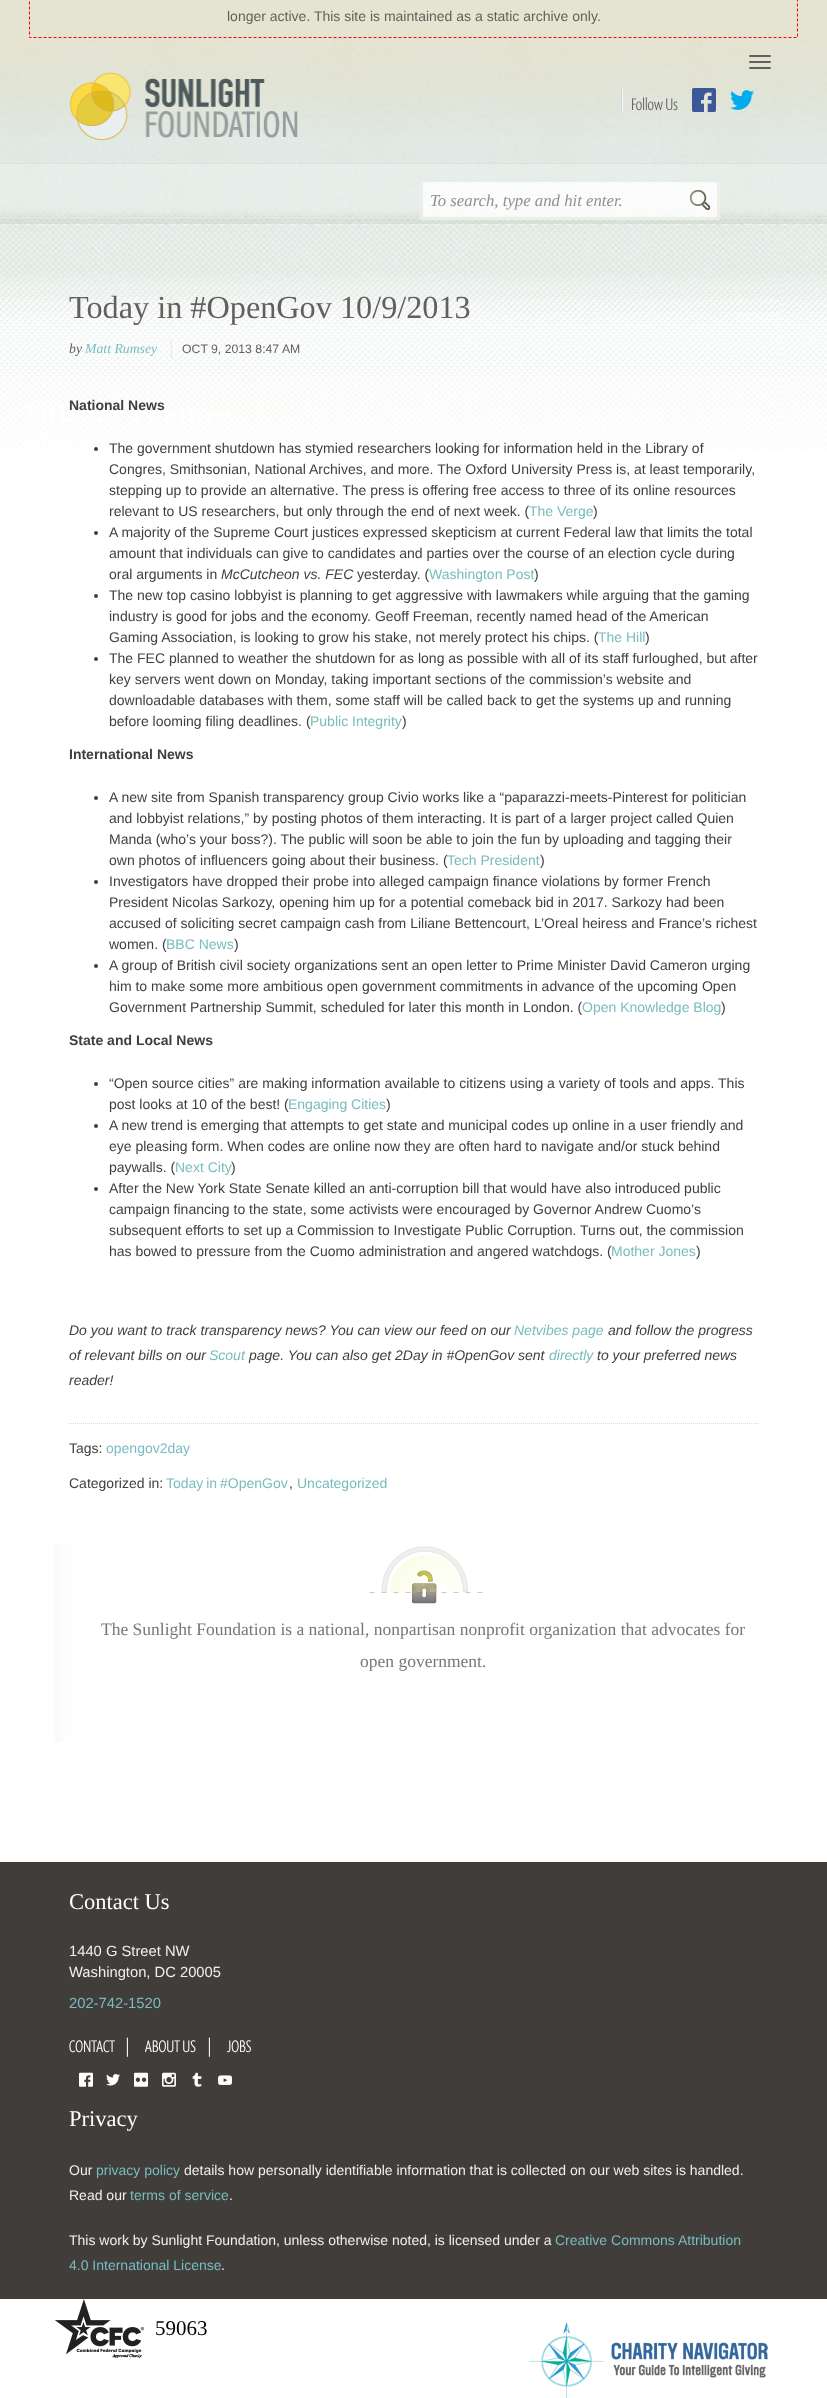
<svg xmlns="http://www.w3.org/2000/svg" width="827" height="2398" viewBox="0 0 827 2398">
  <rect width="100%" height="100%" fill="rgb(255,255,255)"/>
  <rect x="0" y="0" width="827" height="37" fill="rgb(229,228,210)"/>
  <text x="227" y="21" font-family="Liberation Sans" font-size="14" fill="rgb(99,95,92)">longer active. This site is maintained as a static archive only.</text>
  <image x="0" y="37" width="827" height="414" href="pic1.png"/>
  <path d="M29.5-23.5H797.5V37.5H29.5Z" fill="none" stroke="rgb(255,0,0)" stroke-dasharray="3 2"/>
  <rect x="749" y="55" width="22" height="2" rx="1" fill="rgb(99,95,92)"/>
  <rect x="749" y="61" width="22" height="2" rx="1" fill="rgb(99,95,92)"/>
  <rect x="749" y="67" width="22" height="2" rx="1" fill="rgb(99,95,92)"/>
  <image x="70" y="72" width="228" height="68" href="pic2.png"/>
  <image x="621" y="88" width="2" height="24" href="pic3.png"/>
  <text x="631" y="110" font-family="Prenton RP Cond" font-size="17" font-weight="300" fill="rgb(99,95,92)">Follow Us</text>
  <image x="692" y="88" width="24" height="24" href="pic4.png"/>
  <image x="730" y="90" width="24" height="20" href="pic5.png"/>
  <rect x="420" y="182" width="300" height="38" fill="rgba(255,255,255,0.8)"/>
  <rect x="717" y="182" width="3" height="38" fill="rgba(236,234,227,0.8)"/>
  <rect x="420" y="217" width="300" height="3" fill="rgba(236,234,227,0.8)"/>
  <rect x="420" y="182" width="3" height="38" fill="rgba(236,234,227,0.8)"/>
  <text x="430" y="206" font-family="Liberation Serif" font-size="16.75" font-style="italic" fill="rgb(144,144,144)">To search, type and hit enter.</text>
  <image x="690" y="190" width="20" height="20" href="pic6.png"/>
  <text x="69" y="318" font-family="Liberation Serif" font-size="32.25" fill="rgb(99,95,92)">Today in #OpenGov 10/9/2013</text>
  <text x="69" y="353" font-family="Liberation Serif" font-size="13.75" font-style="italic" fill="rgb(99,95,92)">by</text>
  <text x="85" y="353" font-family="Liberation Serif" font-size="13.75" font-style="italic" fill="rgb(120,188,191)">Matt Rumsey</text>
  <rect x="171" y="340" width="1" height="18" fill="rgb(236,234,227)"/>
  <text x="182" y="353" font-family="Liberation Sans" font-size="12.25" fill="rgb(99,95,92)">OCT 9, 2013 8:47 AM</text>
  <text x="69" y="410" font-family="Liberation Sans" font-size="14" font-weight="bold" fill="rgb(65,62,60)">National News</text>
  <circle cx="96" cy="449" r="2" fill="rgb(65,62,60)"/>
  <g font-family="Liberation Sans" font-size="14" fill="rgb(65,62,60)">
    <text>
      <tspan x="109" y="453">The government shutdown has stymied researchers looking for information held in the Library of</tspan>
      <tspan x="109" y="474">Congres, Smithsonian, National Archives, and more. The Oxford University Press is, at least temporarily,</tspan>
      <tspan x="109" y="495">stepping up to provide an alternative. The press is offering free access to three of its online resources</tspan>
      <tspan x="109" y="516">relevant to US researchers, but only through the end of next week. (</tspan>
    </text>
  </g>
  <text x="529" y="516" font-family="Liberation Sans" font-size="14" fill="rgb(120,188,191)">The Verge</text>
  <text x="593" y="516" font-family="Liberation Sans" font-size="14" fill="rgb(65,62,60)">)</text>
  <circle cx="96" cy="533" r="2" fill="rgb(65,62,60)"/>
  <g font-family="Liberation Sans" font-size="14" fill="rgb(65,62,60)">
    <text>
      <tspan x="109" y="537">A majority of the Supreme Court justices expressed skepticism at current Federal law that limits the total</tspan>
      <tspan x="109" y="558">amount that individuals can give to candidates and parties over the course of an election cycle during</tspan>
      <tspan x="109" y="579">oral arguments in</tspan>
    </text>
  </g>
  <text x="221" y="579" font-family="Liberation Sans" font-size="14" font-style="italic" fill="rgb(65,62,60)">McCutcheon vs. FEC</text>
  <text x="357" y="579" font-family="Liberation Sans" font-size="14" fill="rgb(65,62,60)">yesterday. (</text>
  <text x="429" y="579" font-family="Liberation Sans" font-size="14" fill="rgb(120,188,191)">Washington Post</text>
  <text x="534" y="579" font-family="Liberation Sans" font-size="14" fill="rgb(65,62,60)">)</text>
  <circle cx="96" cy="596" r="2" fill="rgb(65,62,60)"/>
  <g font-family="Liberation Sans" font-size="14" fill="rgb(65,62,60)">
    <text>
      <tspan x="109" y="600">The new top casino lobbyist is planning to get aggressive with lawmakers while arguing that the gaming</tspan>
      <tspan x="109" y="621">industry is good for jobs and the economy. Geoff Freeman, recently named head of the American</tspan>
      <tspan x="109" y="642">Gaming Association, is looking to grow his stake, not merely protect his chips. (</tspan>
    </text>
  </g>
  <text x="598" y="642" font-family="Liberation Sans" font-size="14" fill="rgb(120,188,191)">The Hill</text>
  <text x="645" y="642" font-family="Liberation Sans" font-size="14" fill="rgb(65,62,60)">)</text>
  <circle cx="96" cy="659" r="2" fill="rgb(65,62,60)"/>
  <g font-family="Liberation Sans" font-size="14" fill="rgb(65,62,60)">
    <text>
      <tspan x="109" y="663">The FEC planned to weather the shutdown for as long as possible with all of its staff furloughed, but after</tspan>
      <tspan x="109" y="684">key servers went down on Monday, taking important sections of the commission’s website and</tspan>
      <tspan x="109" y="705">downloadable databases with them, some staff will be called back to get the systems up and running</tspan>
      <tspan x="109" y="726">before looming filing deadlines. (</tspan>
    </text>
  </g>
  <text x="310" y="726" font-family="Liberation Sans" font-size="14" fill="rgb(120,188,191)">Public Integrity</text>
  <text x="402" y="726" font-family="Liberation Sans" font-size="14" fill="rgb(65,62,60)">)</text>
  <text x="69" y="759" font-family="Liberation Sans" font-size="14" font-weight="bold" fill="rgb(65,62,60)">International News</text>
  <circle cx="96" cy="798" r="2" fill="rgb(65,62,60)"/>
  <g font-family="Liberation Sans" font-size="14" fill="rgb(65,62,60)">
    <text>
      <tspan x="109" y="802">A new site from Spanish transparency group Civio works like a “paparazzi-meets-Pinterest for politician</tspan>
      <tspan x="109" y="823">and lobbyist relations,” by posting photos of them interacting. It is part of a larger project called Quien</tspan>
      <tspan x="109" y="844">Manda (who’s your boss?). The public will soon be able to join the fun by uploading and tagging their</tspan>
      <tspan x="109" y="865">own photos of influencers going about their business. (</tspan>
    </text>
  </g>
  <text x="447" y="865" font-family="Liberation Sans" font-size="14" fill="rgb(120,188,191)">Tech President</text>
  <text x="540" y="865" font-family="Liberation Sans" font-size="14" fill="rgb(65,62,60)">)</text>
  <circle cx="96" cy="882" r="2" fill="rgb(65,62,60)"/>
  <g font-family="Liberation Sans" font-size="14" fill="rgb(65,62,60)">
    <text>
      <tspan x="109" y="886">Investigators have dropped their probe into alleged campaign finance violations by former French</tspan>
      <tspan x="109" y="907">President Nicolas Sarkozy, opening him up for a potential comeback bid in 2017. Sarkozy had been</tspan>
      <tspan x="109" y="928">accused of soliciting secret campaign cash from Liliane Bettencourt, L’Oreal heiress and France’s richest</tspan>
      <tspan x="109" y="949">women. (</tspan>
    </text>
  </g>
  <text x="166" y="949" font-family="Liberation Sans" font-size="14" fill="rgb(120,188,191)">BBC News</text>
  <text x="234" y="949" font-family="Liberation Sans" font-size="14" fill="rgb(65,62,60)">)</text>
  <circle cx="96" cy="966" r="2" fill="rgb(65,62,60)"/>
  <g font-family="Liberation Sans" font-size="14" fill="rgb(65,62,60)">
    <text>
      <tspan x="109" y="970">A group of British civil society organizations sent an open letter to Prime Minister David Cameron urging</tspan>
      <tspan x="109" y="991">him to make some more ambitious open government commitments in advance of the upcoming Open</tspan>
      <tspan x="109" y="1012">Government Partnership Summit, scheduled for later this month in London. (</tspan>
    </text>
  </g>
  <text x="582" y="1012" font-family="Liberation Sans" font-size="14" fill="rgb(120,188,191)">Open Knowledge Blog</text>
  <text x="721" y="1012" font-family="Liberation Sans" font-size="14" fill="rgb(65,62,60)">)</text>
  <text x="69" y="1045" font-family="Liberation Sans" font-size="14" font-weight="bold" fill="rgb(65,62,60)">State and Local News</text>
  <circle cx="96" cy="1084" r="2" fill="rgb(65,62,60)"/>
  <g font-family="Liberation Sans" font-size="14" fill="rgb(65,62,60)">
    <text>
      <tspan x="109" y="1088">“Open source cities” are making information available to citizens using a variety of tools and apps. This</tspan>
      <tspan x="109" y="1109">post looks at 10 of the best! (</tspan>
    </text>
  </g>
  <text x="288" y="1109" font-family="Liberation Sans" font-size="14" fill="rgb(120,188,191)">Engaging Cities</text>
  <text x="386" y="1109" font-family="Liberation Sans" font-size="14" fill="rgb(65,62,60)">)</text>
  <circle cx="96" cy="1126" r="2" fill="rgb(65,62,60)"/>
  <g font-family="Liberation Sans" font-size="14" fill="rgb(65,62,60)">
    <text>
      <tspan x="109" y="1130">A new trend is emerging that attempts to get state and municipal codes up online in a user friendly and</tspan>
      <tspan x="109" y="1151">eye pleasing form. When codes are online now they are often hard to navigate and/or stuck behind</tspan>
      <tspan x="109" y="1172">paywalls. (</tspan>
    </text>
  </g>
  <text x="175" y="1172" font-family="Liberation Sans" font-size="14" fill="rgb(120,188,191)">Next City</text>
  <text x="231" y="1172" font-family="Liberation Sans" font-size="14" fill="rgb(65,62,60)">)</text>
  <circle cx="96" cy="1189" r="2" fill="rgb(65,62,60)"/>
  <g font-family="Liberation Sans" font-size="14" fill="rgb(65,62,60)">
    <text>
      <tspan x="109" y="1193">After the New York State Senate killed an anti-corruption bill that would have also introduced public</tspan>
      <tspan x="109" y="1214">campaign financing to the state, some activists were encouraged by Governor Andrew Cuomo’s</tspan>
      <tspan x="109" y="1235">subsequent efforts to set up a Commission to Investigate Public Corruption. Turns out, the commission</tspan>
      <tspan x="109" y="1256">has bowed to pressure from the Cuomo administration and angered watchdogs. (</tspan>
    </text>
  </g>
  <text x="611" y="1256" font-family="Liberation Sans" font-size="14" fill="rgb(120,188,191)">Mother Jones</text>
  <text x="696" y="1256" font-family="Liberation Sans" font-size="14" fill="rgb(65,62,60)">)</text>
  <text x="69" y="1335" font-family="Liberation Sans" font-size="14" font-style="italic" fill="rgb(65,62,60)">Do you want to track transparency news? You can view our feed on our</text>
  <text x="514" y="1335" font-family="Liberation Sans" font-size="14" font-style="italic" fill="rgb(120,188,191)">Netvibes page</text>
  <g font-family="Liberation Sans" font-size="14" font-style="italic" fill="rgb(65,62,60)">
    <text x="608" y="1335">and follow the progress</text>
    <text x="69" y="1360">of relevant bills on our</text>
  </g>
  <text x="209" y="1360" font-family="Liberation Sans" font-size="14" font-style="italic" fill="rgb(120,188,191)">Scout</text>
  <text x="249" y="1360" font-family="Liberation Sans" font-size="14" font-style="italic" fill="rgb(65,62,60)">page. You can also get 2Day in #OpenGov sent</text>
  <text x="549" y="1360" font-family="Liberation Sans" font-size="14" font-style="italic" fill="rgb(120,188,191)">directly</text>
  <g font-family="Liberation Sans" font-size="14" font-style="italic" fill="rgb(65,62,60)">
    <text x="597" y="1360">to your preferred news</text>
    <text x="69" y="1385">reader!</text>
  </g>
  <path d="M69 1423.5H759" fill="none" stroke="rgb(221,219,217)" stroke-dasharray="1 1"/>
  <text x="69" y="1453" font-family="Liberation Sans" font-size="14" fill="rgb(65,62,60)">Tags:</text>
  <text x="106" y="1453" font-family="Liberation Sans" font-size="14" fill="rgb(120,188,191)">opengov2day</text>
  <text x="69" y="1488" font-family="Liberation Sans" font-size="14" fill="rgb(65,62,60)">Categorized in:</text>
  <text x="166" y="1488" word-spacing="-1" font-family="Liberation Sans" font-size="14" fill="rgb(120,188,191)">Today in #OpenGov</text>
  <text x="289" y="1488" font-family="Liberation Sans" font-size="14" fill="rgb(65,62,60)">,</text>
  <text x="297" y="1488" font-family="Liberation Sans" font-size="14" fill="rgb(120,188,191)">Uncategorized</text>
  <image x="54" y="1544" width="16" height="198" href="pic7.png"/>
  <image x="369" y="1546" width="114" height="58" href="pic8.png"/>
  <g font-family="Liberation Serif" font-size="17.5" fill="rgb(124,118,114)">
    <text x="101" y="1635">The Sunlight Foundation is a national, nonpartisan nonprofit organization that advocates for</text>
    <text x="360" y="1667">open government.</text>
  </g>
  <rect x="0" y="1862" width="827" height="437" fill="rgb(65,61,58)"/>
  <text x="69" y="1909" font-family="Liberation Serif" font-size="22.5" fill="rgb(255,255,255)">Contact Us</text>
  <g font-family="Liberation Sans" font-size="14.75" fill="rgb(241,239,237)">
    <text>
      <tspan x="69" y="1956">1440 G Street NW</tspan>
      <tspan x="69" y="1977">Washington, DC 20005</tspan>
    </text>
  </g>
  <text x="69" y="2008" font-family="Liberation Sans" font-size="14.75" fill="rgb(120,188,191)">202-742-1520</text>
  <g font-family="Prenton RP Cond" font-size="17" font-weight="300" fill="rgb(255,255,255)">
    <text x="69" y="2052">CONTACT</text>
    <text x="124" y="2052">|</text>
    <text x="145" y="2052">ABOUT US</text>
    <text x="206" y="2052">|</text>
    <text x="227" y="2052">JOBS</text>
  </g>
  <image x="79" y="2072" width="14" height="15" href="pic9.png"/>
  <image x="106" y="2074" width="14" height="12" href="pic10.png"/>
  <image x="134" y="2072" width="14" height="15" href="pic11.png"/>
  <image x="162" y="2072" width="14" height="15" href="pic12.png"/>
  <image x="192" y="2072" width="10" height="15" href="pic13.png"/>
  <image x="218" y="2075" width="14" height="10" href="pic14.png"/>
  <text x="69" y="2126" font-family="Liberation Serif" font-size="22.5" fill="rgb(255,255,255)">Privacy</text>
  <text x="69" y="2175" font-family="Liberation Sans" font-size="14" fill="rgb(241,239,237)">Our</text>
  <text x="96" y="2175" font-family="Liberation Sans" font-size="14" fill="rgb(120,188,191)">privacy policy</text>
  <g font-family="Liberation Sans" font-size="14" fill="rgb(241,239,237)">
    <text x="184" y="2175">details how personally identifiable information that is collected on our web sites is handled.</text>
    <text x="69" y="2200">Read our</text>
  </g>
  <text x="130" y="2200" font-family="Liberation Sans" font-size="14" fill="rgb(120,188,191)">terms of service</text>
  <g font-family="Liberation Sans" font-size="14" fill="rgb(241,239,237)">
    <text x="229" y="2200">.</text>
    <text x="69" y="2245">This work by Sunlight Foundation, unless otherwise noted, is licensed under a</text>
  </g>
  <g font-family="Liberation Sans" font-size="14" fill="rgb(120,188,191)">
    <text x="555" y="2245">Creative Commons Attribution</text>
    <text x="69" y="2270">4.0 International License</text>
  </g>
  <text x="221" y="2270" font-family="Liberation Sans" font-size="14" fill="rgb(241,239,237)">.</text>
  <image x="55" y="2299" width="90" height="59" href="pic15.png"/>
  <text x="155" y="2335" font-family="Liberation Serif" font-size="21" fill="rgb(0,0,0)">59063</text>
  <image x="529" y="2322" width="239" height="76" href="pic16.png"/>
</svg>
